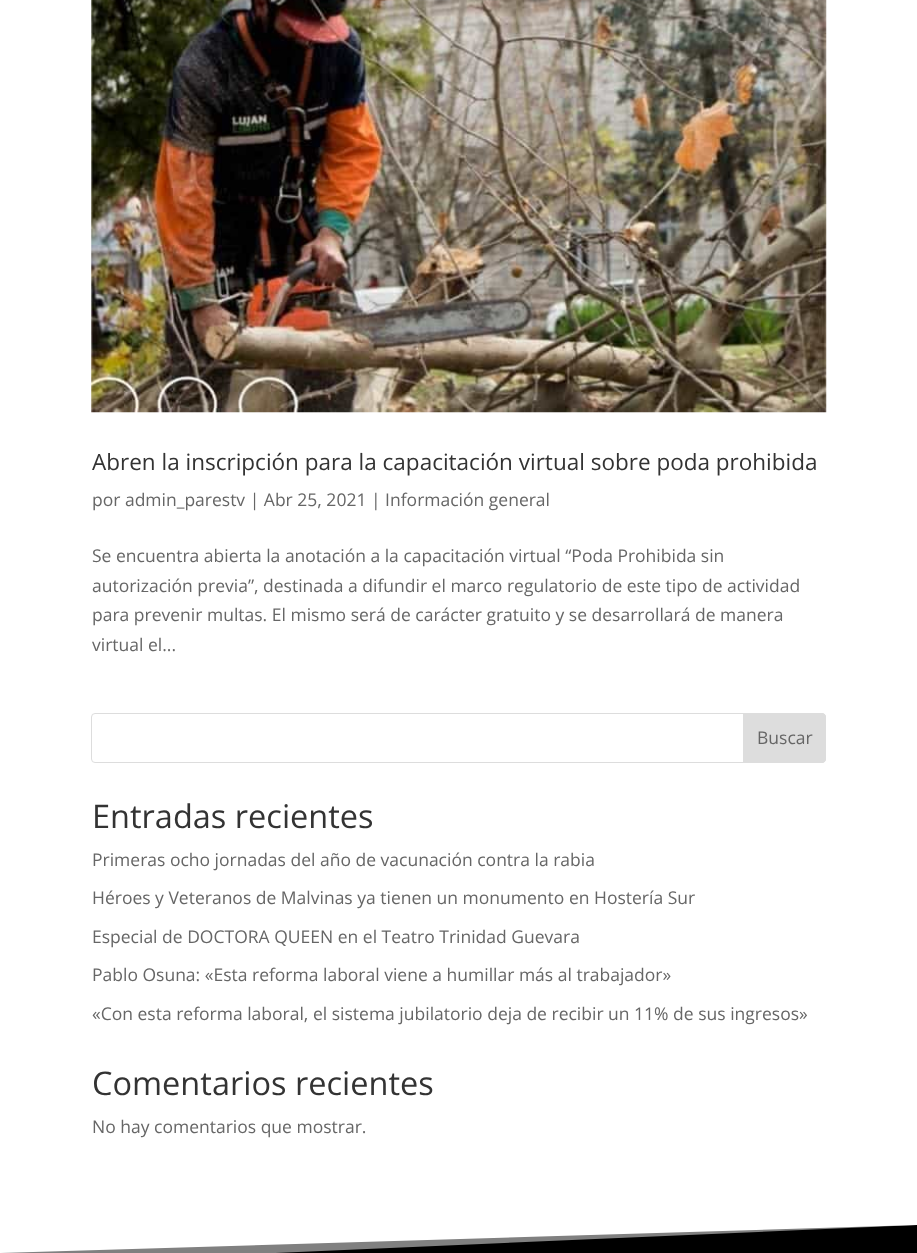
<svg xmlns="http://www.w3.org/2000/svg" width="917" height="1253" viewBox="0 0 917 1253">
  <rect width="100%" height="100%" fill="rgb(255,255,255)"/>
  <image x="91" y="0" width="736" height="413" href="pic1.png"/>
  <text x="92" y="470" font-family="Open Sans" font-size="22.5" fill="rgb(51,51,51)">Abren la inscripción para la capacitación virtual sobre poda prohibida</text>
  <g font-family="Open Sans" font-size="17.5" fill="rgb(102,102,102)">
    <text x="92" y="506">por admin_parestv | Abr 25, 2021 | Información general</text>
    <text>
      <tspan x="92" y="562">Se encuentra abierta la anotación a la capacitación virtual “Poda Prohibida sin</tspan>
      <tspan x="92" y="592">autorización previa”, destinada a difundir el marco regulatorio de este tipo de actividad</tspan>
      <tspan x="92" y="621">para prevenir multas. El mismo será de carácter gratuito y se desarrollará de manera</tspan>
      <tspan x="92" y="651">virtual el...</tspan>
    </text>
  </g>
  <rect x="91.5" y="713.5" width="734" height="49" rx="3.5" fill="none" stroke="rgb(221,221,221)"/>
  <path d="M743.5 713.5H822C824 713.5 825.5 715 825.5 717V759C825.5 761 824 762.5 822 762.5H743.5Z" fill="rgb(221,221,221)" stroke="rgb(221,221,221)"/>
  <text x="757" y="744" font-family="Open Sans" font-size="17.5" fill="rgb(102,102,102)">Buscar</text>
  <text x="92" y="828" font-family="Open Sans" font-size="32.5" fill="rgb(51,51,51)">Entradas recientes</text>
  <g font-family="Open Sans" font-size="17.5" fill="rgb(102,102,102)">
    <text x="92" y="866">Primeras ocho jornadas del año de vacunación contra la rabia</text>
    <text x="92" y="904">Héroes y Veteranos de Malvinas ya tienen un monumento en Hostería Sur</text>
    <text x="92" y="943">Especial de DOCTORA QUEEN en el Teatro Trinidad Guevara</text>
    <text x="92" y="981">Pablo Osuna: «Esta reforma laboral viene a humillar más al trabajador»</text>
    <text x="92" y="1020">«Con esta reforma laboral, el sistema jubilatorio deja de recibir un 11% de sus ingresos»</text>
  </g>
  <text x="92" y="1095" font-family="Open Sans" font-size="32.5" fill="rgb(51,51,51)">Comentarios recientes</text>
  <text x="92" y="1133" font-family="Open Sans" font-size="17.5" fill="rgb(102,102,102)">No hay comentarios que mostrar.</text>
  <rect x="276" y="1225" width="641" height="28" fill="rgb(0,0,0)"/>
  <path d="M0 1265V1225H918Z" fill="rgb(128,128,128)"/>
  <path d="M0 1253V1225H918Z" fill="rgb(255,255,255)"/>
</svg>
